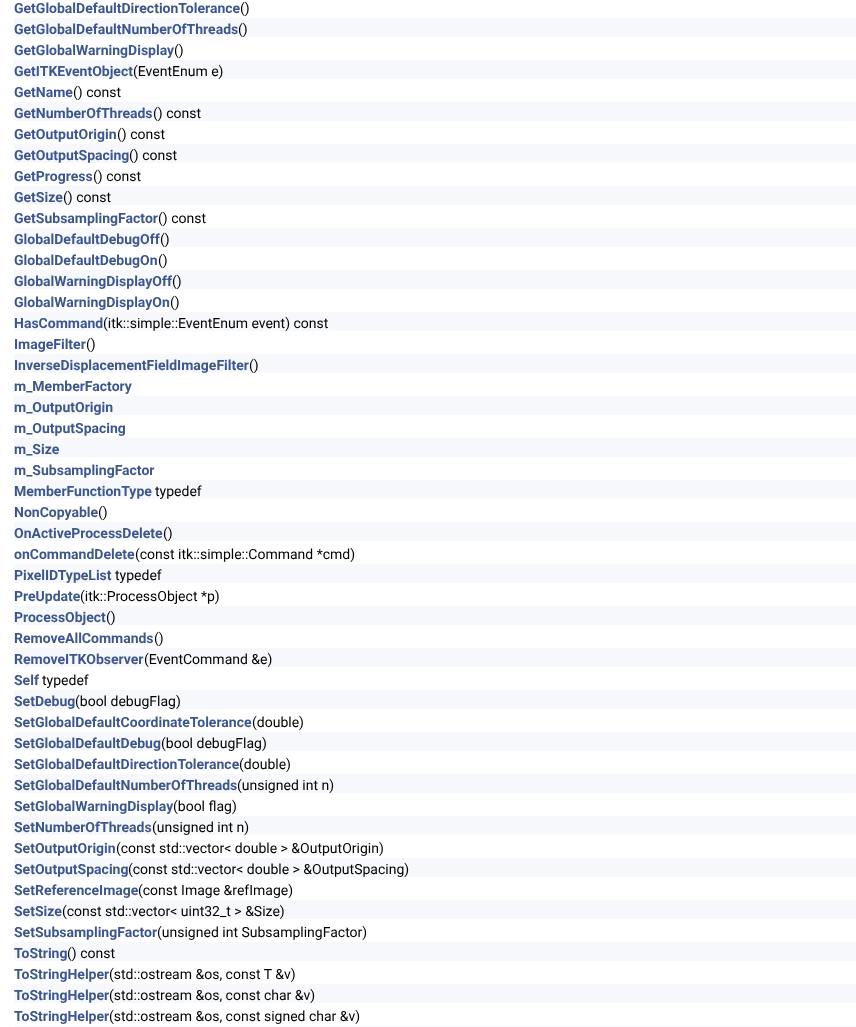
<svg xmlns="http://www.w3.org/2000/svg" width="856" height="1027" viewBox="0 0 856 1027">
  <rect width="100%" height="100%" fill="rgb(255,255,255)"/>
  <text x="14" y="13" font-family="Roboto" font-size="14" font-weight="bold" fill="rgb(61,87,140)">GetGlobalDefaultDirectionTolerance</text>
  <text x="240" y="13" font-family="Roboto" font-size="14" fill="rgb(0,0,0)">()</text>
  <rect x="14" y="18" width="842" height="19" fill="rgb(247,248,251)"/>
  <text x="14" y="34" font-family="Roboto" font-size="14" font-weight="bold" fill="rgb(61,87,140)">GetGlobalDefaultNumberOfThreads</text>
  <text x="238" y="34" font-family="Roboto" font-size="14" fill="rgb(0,0,0)">()</text>
  <text x="14" y="55" font-family="Roboto" font-size="14" font-weight="bold" fill="rgb(61,87,140)">GetGlobalWarningDisplay</text>
  <text x="174" y="55" font-family="Roboto" font-size="14" fill="rgb(0,0,0)">()</text>
  <rect x="14" y="60" width="842" height="19" fill="rgb(247,248,251)"/>
  <text x="14" y="76" font-family="Roboto" font-size="14" font-weight="bold" fill="rgb(61,87,140)">GetITKEventObject</text>
  <text x="133" y="76" font-family="Roboto" font-size="14" fill="rgb(0,0,0)">(EventEnum e)</text>
  <text x="14" y="97" font-family="Roboto" font-size="14" font-weight="bold" fill="rgb(61,87,140)">GetName</text>
  <text x="73" y="97" font-family="Roboto" font-size="14" fill="rgb(0,0,0)">() const</text>
  <rect x="14" y="102" width="842" height="19" fill="rgb(247,248,251)"/>
  <text x="14" y="118" font-family="Roboto" font-size="14" font-weight="bold" fill="rgb(61,87,140)">GetNumberOfThreads</text>
  <text x="153" y="118" font-family="Roboto" font-size="14" fill="rgb(0,0,0)">() const</text>
  <text x="14" y="139" font-family="Roboto" font-size="14" font-weight="bold" fill="rgb(61,87,140)">GetOutputOrigin</text>
  <text x="117" y="139" font-family="Roboto" font-size="14" fill="rgb(0,0,0)">() const</text>
  <rect x="14" y="144" width="842" height="19" fill="rgb(247,248,251)"/>
  <text x="14" y="160" font-family="Roboto" font-size="14" font-weight="bold" fill="rgb(61,87,140)">GetOutputSpacing</text>
  <text x="129" y="160" font-family="Roboto" font-size="14" fill="rgb(0,0,0)">() const</text>
  <text x="14" y="181" font-family="Roboto" font-size="14" font-weight="bold" fill="rgb(61,87,140)">GetProgress</text>
  <text x="93" y="181" font-family="Roboto" font-size="14" fill="rgb(0,0,0)">() const</text>
  <rect x="14" y="186" width="842" height="19" fill="rgb(247,248,251)"/>
  <text x="14" y="202" font-family="Roboto" font-size="14" font-weight="bold" fill="rgb(61,87,140)">GetSize</text>
  <text x="63" y="202" font-family="Roboto" font-size="14" fill="rgb(0,0,0)">() const</text>
  <text x="14" y="223" font-family="Roboto" font-size="14" font-weight="bold" fill="rgb(61,87,140)">GetSubsamplingFactor</text>
  <text x="158" y="223" font-family="Roboto" font-size="14" fill="rgb(0,0,0)">() const</text>
  <rect x="14" y="228" width="842" height="19" fill="rgb(247,248,251)"/>
  <text x="14" y="244" font-family="Roboto" font-size="14" font-weight="bold" fill="rgb(61,87,140)">GlobalDefaultDebugOff</text>
  <text x="160" y="244" font-family="Roboto" font-size="14" fill="rgb(0,0,0)">()</text>
  <text x="14" y="265" font-family="Roboto" font-size="14" font-weight="bold" fill="rgb(61,87,140)">GlobalDefaultDebugOn</text>
  <text x="158" y="265" font-family="Roboto" font-size="14" fill="rgb(0,0,0)">()</text>
  <rect x="14" y="270" width="842" height="19" fill="rgb(247,248,251)"/>
  <text x="14" y="286" font-family="Roboto" font-size="14" font-weight="bold" fill="rgb(61,87,140)">GlobalWarningDisplayOff</text>
  <text x="172" y="286" font-family="Roboto" font-size="14" fill="rgb(0,0,0)">()</text>
  <text x="14" y="307" font-family="Roboto" font-size="14" font-weight="bold" fill="rgb(61,87,140)">GlobalWarningDisplayOn</text>
  <text x="170" y="307" font-family="Roboto" font-size="14" fill="rgb(0,0,0)">()</text>
  <rect x="14" y="312" width="842" height="19" fill="rgb(247,248,251)"/>
  <text x="14" y="328" font-family="Roboto" font-size="14" font-weight="bold" fill="rgb(61,87,140)">HasCommand</text>
  <text x="103" y="328" font-family="Roboto" font-size="14" fill="rgb(0,0,0)">(itk::simple::EventEnum event) const</text>
  <text x="14" y="349" font-family="Roboto" font-size="14" font-weight="bold" fill="rgb(61,87,140)">ImageFilter</text>
  <text x="86" y="349" font-family="Roboto" font-size="14" fill="rgb(0,0,0)">()</text>
  <rect x="14" y="354" width="842" height="19" fill="rgb(247,248,251)"/>
  <text x="14" y="370" font-family="Roboto" font-size="14" font-weight="bold" fill="rgb(61,87,140)">InverseDisplacementFieldImageFilter</text>
  <text x="249" y="370" font-family="Roboto" font-size="14" fill="rgb(0,0,0)">()</text>
  <text x="14" y="391" font-family="Roboto" font-size="14" font-weight="bold" fill="rgb(61,87,140)">m_MemberFactory</text>
  <rect x="14" y="396" width="842" height="19" fill="rgb(247,248,251)"/>
  <g font-family="Roboto" font-size="14" font-weight="bold" fill="rgb(61,87,140)">
    <text>
      <tspan x="14" y="412">m_OutputOrigin</tspan>
      <tspan x="14" y="433">m_OutputSpacing</tspan>
    </text>
  </g>
  <rect x="14" y="438" width="842" height="19" fill="rgb(247,248,251)"/>
  <g font-family="Roboto" font-size="14" font-weight="bold" fill="rgb(61,87,140)">
    <text>
      <tspan x="14" y="454">m_Size</tspan>
      <tspan x="14" y="475">m_SubsamplingFactor</tspan>
    </text>
  </g>
  <rect x="14" y="480" width="842" height="19" fill="rgb(247,248,251)"/>
  <text x="14" y="496" font-family="Roboto" font-size="14" font-weight="bold" fill="rgb(61,87,140)">MemberFunctionType</text>
  <text x="155" y="496" font-family="Roboto" font-size="14" fill="rgb(0,0,0)">typedef</text>
  <text x="14" y="517" font-family="Roboto" font-size="14" font-weight="bold" fill="rgb(61,87,140)">NonCopyable</text>
  <text x="98" y="517" font-family="Roboto" font-size="14" fill="rgb(0,0,0)">()</text>
  <rect x="14" y="522" width="842" height="19" fill="rgb(247,248,251)"/>
  <text x="14" y="538" font-family="Roboto" font-size="14" font-weight="bold" fill="rgb(61,87,140)">OnActiveProcessDelete</text>
  <text x="163" y="538" font-family="Roboto" font-size="14" fill="rgb(0,0,0)">()</text>
  <text x="14" y="559" font-family="Roboto" font-size="14" font-weight="bold" fill="rgb(61,87,140)">onCommandDelete</text>
  <text x="135" y="559" font-family="Roboto" font-size="14" fill="rgb(0,0,0)">(const itk::simple::Command *cmd)</text>
  <rect x="14" y="564" width="842" height="19" fill="rgb(247,248,251)"/>
  <text x="14" y="580" font-family="Roboto" font-size="14" font-weight="bold" fill="rgb(61,87,140)">PixelIDTypeList</text>
  <text x="115" y="580" font-family="Roboto" font-size="14" fill="rgb(0,0,0)">typedef</text>
  <text x="14" y="601" font-family="Roboto" font-size="14" font-weight="bold" fill="rgb(61,87,140)">PreUpdate</text>
  <text x="80" y="601" font-family="Roboto" font-size="14" fill="rgb(0,0,0)">(itk::ProcessObject *p)</text>
  <rect x="14" y="606" width="842" height="19" fill="rgb(247,248,251)"/>
  <text x="14" y="622" font-family="Roboto" font-size="14" font-weight="bold" fill="rgb(61,87,140)">ProcessObject</text>
  <text x="106" y="622" font-family="Roboto" font-size="14" fill="rgb(0,0,0)">()</text>
  <text x="14" y="643" font-family="Roboto" font-size="14" font-weight="bold" fill="rgb(61,87,140)">RemoveAllCommands</text>
  <text x="154" y="643" font-family="Roboto" font-size="14" fill="rgb(0,0,0)">()</text>
  <rect x="14" y="648" width="842" height="19" fill="rgb(247,248,251)"/>
  <text x="14" y="664" font-family="Roboto" font-size="14" font-weight="bold" fill="rgb(61,87,140)">RemoveITKObserver</text>
  <text x="144" y="664" font-family="Roboto" font-size="14" fill="rgb(0,0,0)">(EventCommand &amp;e)</text>
  <text x="14" y="685" font-family="Roboto" font-size="14" font-weight="bold" fill="rgb(61,87,140)">Self</text>
  <text x="42" y="685" font-family="Roboto" font-size="14" fill="rgb(0,0,0)">typedef</text>
  <rect x="14" y="690" width="842" height="19" fill="rgb(247,248,251)"/>
  <text x="14" y="706" font-family="Roboto" font-size="14" font-weight="bold" fill="rgb(61,87,140)">SetDebug</text>
  <text x="75" y="706" font-family="Roboto" font-size="14" fill="rgb(0,0,0)">(bool debugFlag)</text>
  <text x="14" y="727" font-family="Roboto" font-size="14" font-weight="bold" fill="rgb(61,87,140)">SetGlobalDefaultCoordinateTolerance</text>
  <text x="252" y="727" font-family="Roboto" font-size="14" fill="rgb(0,0,0)">(double)</text>
  <rect x="14" y="732" width="842" height="19" fill="rgb(247,248,251)"/>
  <text x="14" y="748" font-family="Roboto" font-size="14" font-weight="bold" fill="rgb(61,87,140)">SetGlobalDefaultDebug</text>
  <text x="161" y="748" font-family="Roboto" font-size="14" fill="rgb(0,0,0)">(bool debugFlag)</text>
  <text x="14" y="769" font-family="Roboto" font-size="14" font-weight="bold" fill="rgb(61,87,140)">SetGlobalDefaultDirectionTolerance</text>
  <text x="239" y="769" font-family="Roboto" font-size="14" fill="rgb(0,0,0)">(double)</text>
  <rect x="14" y="774" width="842" height="19" fill="rgb(247,248,251)"/>
  <text x="14" y="790" font-family="Roboto" font-size="14" font-weight="bold" fill="rgb(61,87,140)">SetGlobalDefaultNumberOfThreads</text>
  <text x="237" y="790" font-family="Roboto" font-size="14" fill="rgb(0,0,0)">(unsigned int n)</text>
  <text x="14" y="811" font-family="Roboto" font-size="14" font-weight="bold" fill="rgb(61,87,140)">SetGlobalWarningDisplay</text>
  <text x="173" y="811" font-family="Roboto" font-size="14" fill="rgb(0,0,0)">(bool flag)</text>
  <rect x="14" y="816" width="842" height="19" fill="rgb(247,248,251)"/>
  <text x="14" y="832" font-family="Roboto" font-size="14" font-weight="bold" fill="rgb(61,87,140)">SetNumberOfThreads</text>
  <text x="152" y="832" font-family="Roboto" font-size="14" fill="rgb(0,0,0)">(unsigned int n)</text>
  <text x="14" y="853" font-family="Roboto" font-size="14" font-weight="bold" fill="rgb(61,87,140)">SetOutputOrigin</text>
  <text x="116" y="853" font-family="Roboto" font-size="14" fill="rgb(0,0,0)">(const std::vector&lt; double &gt; &amp;OutputOrigin)</text>
  <rect x="14" y="858" width="842" height="19" fill="rgb(247,248,251)"/>
  <text x="14" y="874" font-family="Roboto" font-size="14" font-weight="bold" fill="rgb(61,87,140)">SetOutputSpacing</text>
  <text x="128" y="874" font-family="Roboto" font-size="14" fill="rgb(0,0,0)">(const std::vector&lt; double &gt; &amp;OutputSpacing)</text>
  <text x="14" y="895" font-family="Roboto" font-size="14" font-weight="bold" fill="rgb(61,87,140)">SetReferenceImage</text>
  <text x="138" y="895" font-family="Roboto" font-size="14" fill="rgb(0,0,0)">(const Image &amp;refImage)</text>
  <rect x="14" y="900" width="842" height="19" fill="rgb(247,248,251)"/>
  <text x="14" y="916" font-family="Roboto" font-size="14" font-weight="bold" fill="rgb(61,87,140)">SetSize</text>
  <text x="62" y="916" font-family="Roboto" font-size="14" fill="rgb(0,0,0)">(const std::vector&lt; uint32_t &gt; &amp;Size)</text>
  <text x="14" y="937" font-family="Roboto" font-size="14" font-weight="bold" fill="rgb(61,87,140)">SetSubsamplingFactor</text>
  <text x="157" y="937" font-family="Roboto" font-size="14" fill="rgb(0,0,0)">(unsigned int SubsamplingFactor)</text>
  <rect x="14" y="942" width="842" height="19" fill="rgb(247,248,251)"/>
  <text x="14" y="958" font-family="Roboto" font-size="14" font-weight="bold" fill="rgb(61,87,140)">ToString</text>
  <text x="67" y="958" font-family="Roboto" font-size="14" fill="rgb(0,0,0)">() const</text>
  <text x="14" y="979" font-family="Roboto" font-size="14" font-weight="bold" fill="rgb(61,87,140)">ToStringHelper</text>
  <text x="109" y="979" font-family="Roboto" font-size="14" fill="rgb(0,0,0)">(std::ostream &amp;os, const T &amp;v)</text>
  <rect x="14" y="984" width="842" height="19" fill="rgb(247,248,251)"/>
  <text x="14" y="1000" font-family="Roboto" font-size="14" font-weight="bold" fill="rgb(61,87,140)">ToStringHelper</text>
  <text x="109" y="1000" font-family="Roboto" font-size="14" fill="rgb(0,0,0)">(std::ostream &amp;os, const char &amp;v)</text>
  <text x="14" y="1021" font-family="Roboto" font-size="14" font-weight="bold" fill="rgb(61,87,140)">ToStringHelper</text>
  <text x="109" y="1021" font-family="Roboto" font-size="14" fill="rgb(0,0,0)">(std::ostream &amp;os, const signed char &amp;v)</text>
  <rect x="14" y="1026" width="842" height="1" fill="rgb(247,248,251)"/>
</svg>
